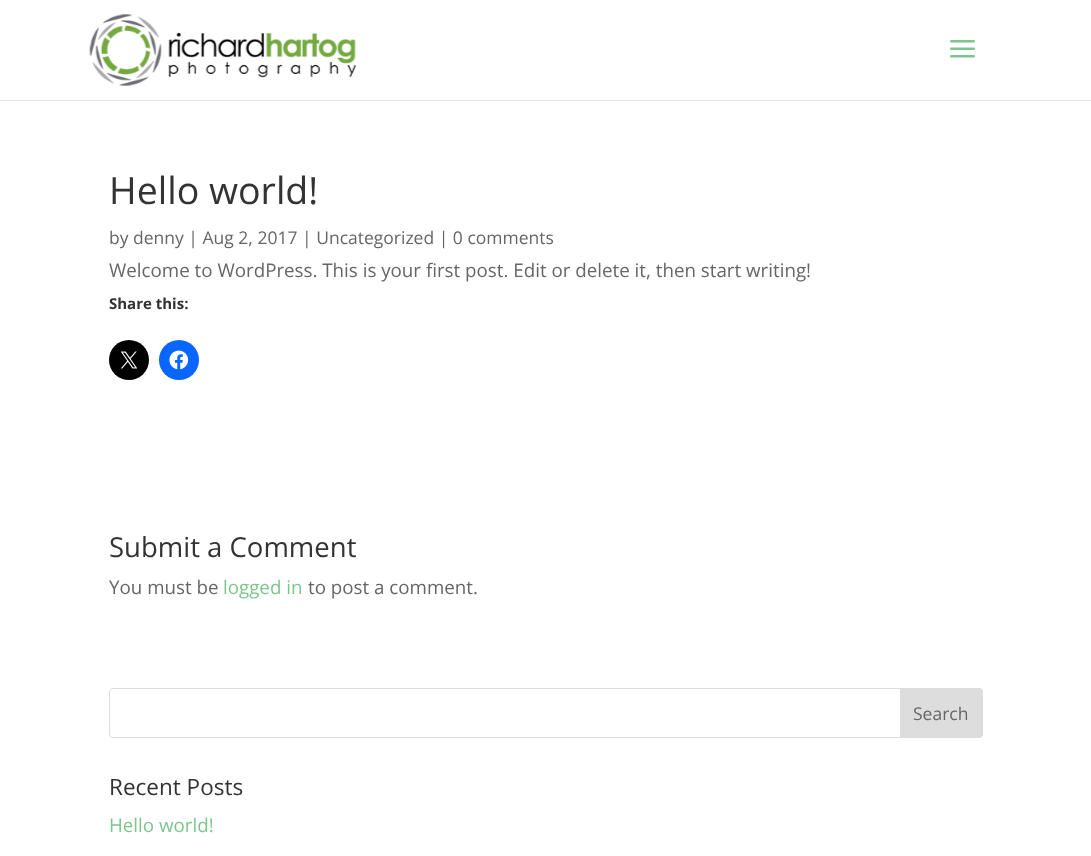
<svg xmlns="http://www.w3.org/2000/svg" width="1091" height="856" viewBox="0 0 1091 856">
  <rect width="100%" height="100%" fill="rgb(255,255,255)"/>
  <rect x="0" y="100" width="1091" height="1" fill="rgb(230,230,230)"/>
  <image x="89" y="14" width="268" height="72" href="pic1.png"/>
  <image x="950" y="40" width="25" height="18" href="pic2.png"/>
  <text x="109" y="204" font-family="Open Sans" font-size="37.5" fill="rgb(51,51,51)">Hello world!</text>
  <text x="109" y="244" font-family="Open Sans" font-size="17.5" fill="rgb(102,102,102)">by denny | Aug 2, 2017 | Uncategorized | 0 comments</text>
  <text x="109" y="277" font-family="Open Sans" font-size="18.75" fill="rgb(102,102,102)">Welcome to WordPress. This is your first post. Edit or delete it, then start writing!</text>
  <text x="109" y="309" font-family="Open Sans" font-size="15" font-weight="bold" fill="rgb(51,51,51)">Share this:</text>
  <circle cx="129" cy="360" r="20" fill="rgb(0,0,0)"/>
  <image x="120" y="351" width="18" height="18" href="pic3.png"/>
  <circle cx="179" cy="360" r="20" fill="rgb(8,102,255)"/>
  <image x="169" y="350" width="20" height="20" href="pic4.png"/>
  <text x="109" y="557" font-family="Open Sans" font-size="27.5" fill="rgb(51,51,51)">Submit a Comment</text>
  <text x="109" y="594" font-family="Open Sans" font-size="18.75" fill="rgb(102,102,102)">You must be</text>
  <text x="223" y="594" font-family="Open Sans" font-size="18.75" fill="rgb(124,198,141)">logged in</text>
  <text x="308" y="594" font-family="Open Sans" font-size="18.75" fill="rgb(102,102,102)">to post a comment.</text>
  <rect x="109.5" y="688.5" width="873" height="49" rx="3.5" fill="none" stroke="rgb(221,221,221)"/>
  <path d="M900.5 688.5H979C981 688.5 982.5 690 982.5 692V734C982.5 736 981 737.5 979 737.5H900.5Z" fill="rgb(221,221,221)" stroke="rgb(221,221,221)"/>
  <text x="913" y="720" font-family="Open Sans" font-size="17.5" fill="rgb(102,102,102)">Search</text>
  <text x="109" y="795" font-family="Open Sans" font-size="22.5" fill="rgb(51,51,51)">Recent Posts</text>
  <text x="109" y="832" font-family="Open Sans" font-size="18.75" fill="rgb(124,198,141)">Hello world!</text>
</svg>
